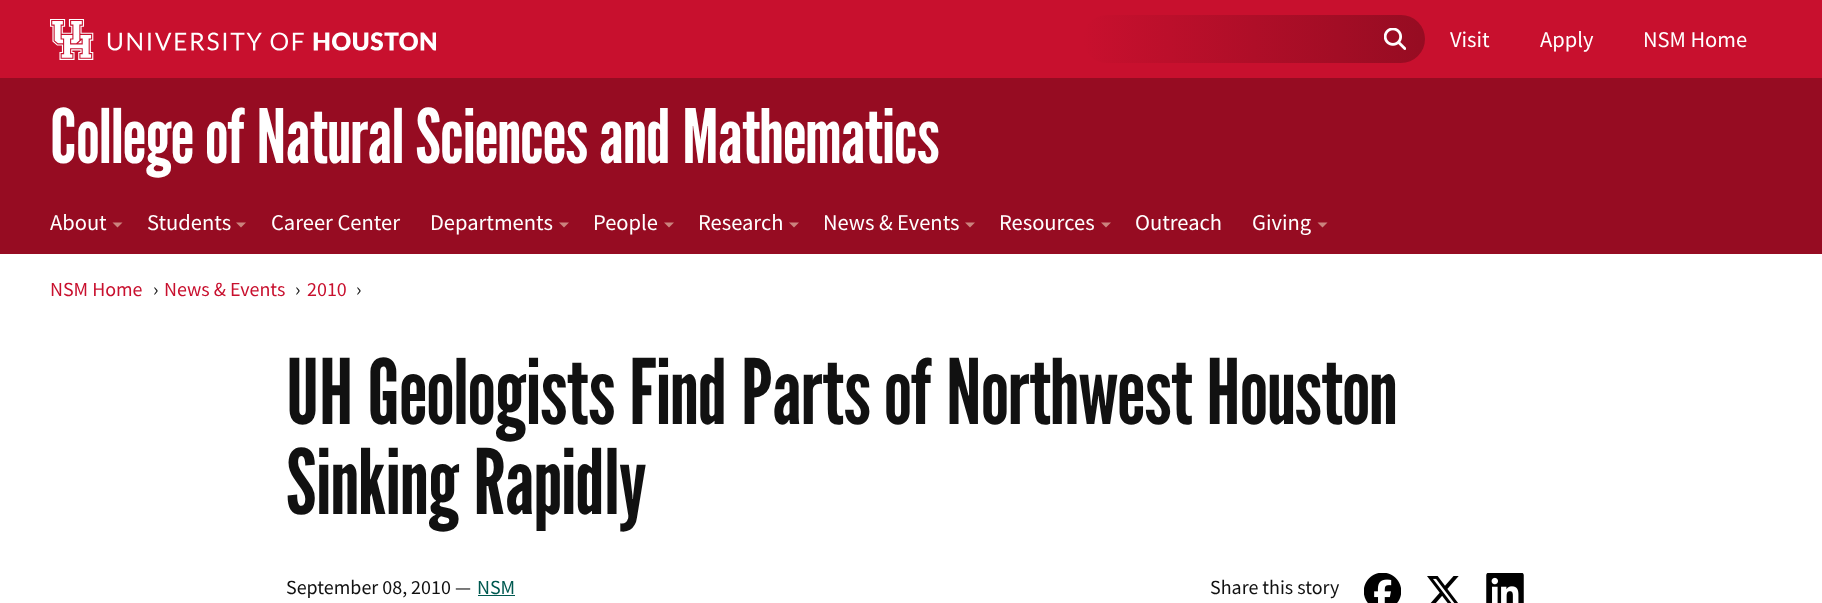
<svg xmlns="http://www.w3.org/2000/svg" width="1822" height="603" viewBox="0 0 1822 603">
  <defs>
    <linearGradient id="g1" gradientUnits="userSpaceOnUse" x1="1083" y1="39" x2="1425" y2="39"><stop offset="0" stop-color="rgb(200,16,46)"/><stop offset="1" stop-color="rgb(150,12,34)"/></linearGradient>
  </defs>
  <rect width="100%" height="100%" fill="rgb(255,255,255)"/>
  <rect x="0" y="0" width="1822" height="78" fill="rgb(200,16,46)"/>
  <image x="50" y="19" width="386" height="41" href="pic1.png"/>
  <rect x="1083" y="15" width="342" height="48" rx="24" fill="url(#g1)"/>
  <image x="1384" y="28" width="22" height="22" href="pic2.png"/>
  <g font-family="Source Sans Pro" font-size="22.5" fill="rgb(255,255,255)">
    <text x="1450" y="47">Visit</text>
    <text x="1540" y="47">Apply</text>
    <text x="1643" y="47">NSM Home</text>
  </g>
  <rect x="0" y="78" width="1822" height="176" fill="rgb(150,12,34)"/>
  <text x="50" y="163" font-family="League Gothic" font-size="75" fill="rgb(255,255,255)">College of Natural Sciences and Mathematics</text>
  <text x="50" y="230" font-family="Source Sans Pro" font-size="22.5" fill="rgb(255,255,255)">About</text>
  <path d="M112.5 222.5H122.5L117.5 227.5Z" fill="rgb(203,131,126)"/>
  <text x="147" y="230" font-family="Source Sans Pro" font-size="22.5" fill="rgb(255,255,255)">Students</text>
  <path d="M236 222.5H246L241 227.5Z" fill="rgb(203,131,126)"/>
  <g font-family="Source Sans Pro" font-size="22.5" fill="rgb(255,255,255)">
    <text x="271" y="230">Career Center</text>
    <text x="430" y="230">Departments</text>
  </g>
  <path d="M559 222.5H569L564 227.5Z" fill="rgb(203,131,126)"/>
  <text x="593" y="230" font-family="Source Sans Pro" font-size="22.5" fill="rgb(255,255,255)">People</text>
  <path d="M664 222.5H674L669 227.5Z" fill="rgb(203,131,126)"/>
  <text x="698" y="230" font-family="Source Sans Pro" font-size="22.5" fill="rgb(255,255,255)">Research</text>
  <path d="M789 222.5H799L794 227.5Z" fill="rgb(203,131,126)"/>
  <text x="823" y="230" font-family="Source Sans Pro" font-size="22.5" fill="rgb(255,255,255)">News &amp; Events</text>
  <path d="M965 222.5H975L970 227.5Z" fill="rgb(203,131,126)"/>
  <text x="999" y="230" font-family="Source Sans Pro" font-size="22.5" fill="rgb(255,255,255)">Resources</text>
  <path d="M1101 222.5H1111L1106 227.5Z" fill="rgb(203,131,126)"/>
  <g font-family="Source Sans Pro" font-size="22.5" fill="rgb(255,255,255)">
    <text x="1135" y="230">Outreach</text>
    <text x="1252" y="230">Giving</text>
  </g>
  <path d="M1317.5 222.5H1327.5L1322.5 227.5Z" fill="rgb(203,131,126)"/>
  <text x="50" y="296" font-family="'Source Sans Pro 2'" font-size="20" fill="rgb(200,16,46)">NSM Home</text>
  <text x="153" y="296" font-family="'Source Sans Pro 2'" font-size="20" fill="rgb(17,17,17)">›</text>
  <text x="164" y="296" font-family="'Source Sans Pro 2'" font-size="20" fill="rgb(200,16,46)">News &amp; Events</text>
  <text x="295" y="296" font-family="'Source Sans Pro 2'" font-size="20" fill="rgb(17,17,17)">›</text>
  <text x="307" y="296" font-family="'Source Sans Pro 2'" font-size="20" fill="rgb(200,16,46)">2010</text>
  <text x="356" y="296" font-family="'Source Sans Pro 2'" font-size="20" fill="rgb(17,17,17)">›</text>
  <g font-family="League Gothic" font-size="90" fill="rgb(17,17,17)">
    <text>
      <tspan x="286" y="424">UH Geologists Find Parts of Northwest Houston</tspan>
      <tspan x="286" y="514">Sinking Rapidly</tspan>
    </text>
  </g>
  <text x="286" y="594" font-family="Source Sans Pro" font-size="20" fill="rgb(17,17,17)">September 08, 2010 —</text>
  <text x="477" y="594" font-family="Source Sans Pro" font-size="20" fill="rgb(0,89,80)">NSM</text>
  <rect x="478" y="595" width="37" height="1" fill="rgb(0,89,80)"/>
  <text x="1210" y="594" font-family="Source Sans Pro" font-size="20" fill="rgb(17,17,17)">Share this story</text>
  <image x="1364" y="573" width="37" height="30" href="pic3.png"/>
  <image x="1427" y="576" width="32" height="27" href="pic4.png"/>
  <image x="1486" y="573" width="38" height="30" href="pic5.png"/>
</svg>
